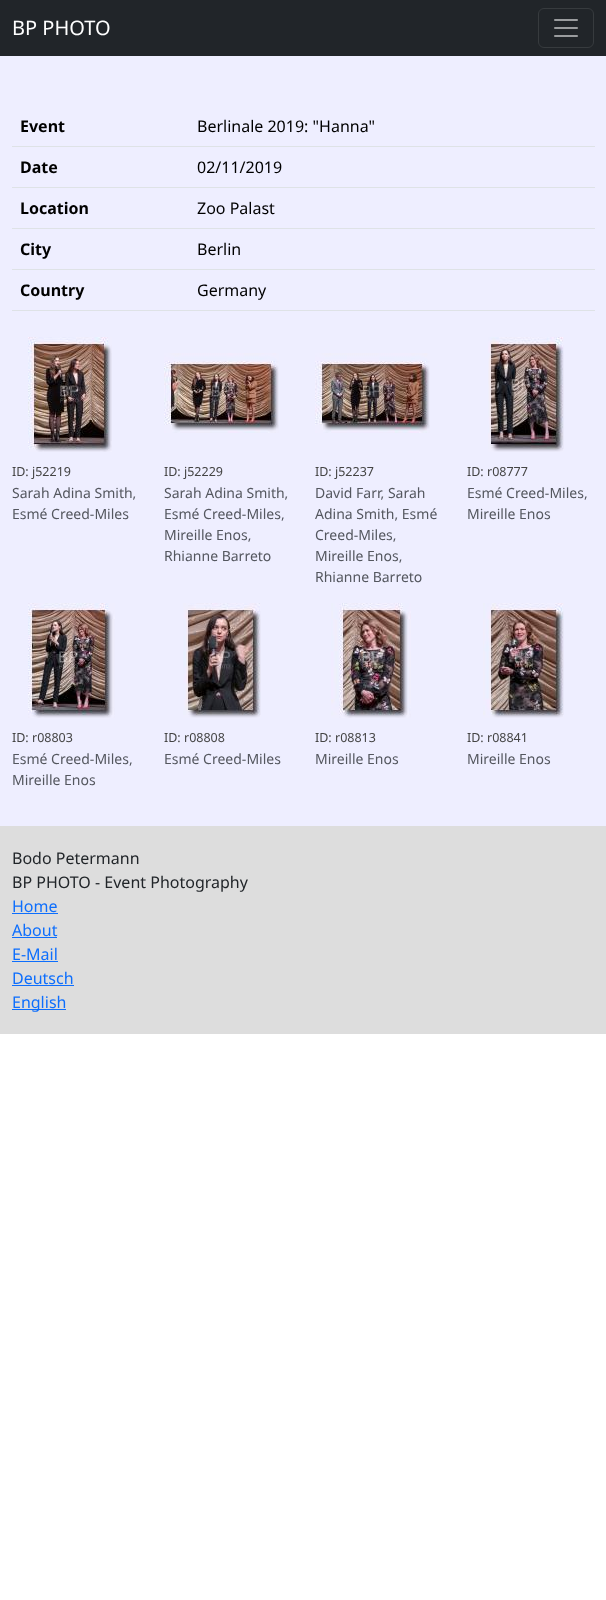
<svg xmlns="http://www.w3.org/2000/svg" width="606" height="1600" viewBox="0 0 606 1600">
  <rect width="100%" height="100%" fill="rgb(255,255,255)"/>
  <rect x="0" y="0" width="606" height="56" fill="rgb(33,37,41)"/>
  <text x="12" y="35" font-family="Noto Sans" font-size="20" fill="rgb(255,255,255)">BP PHOTO</text>
  <rect x="538.5" y="8.5" width="55" height="39" rx="5.5" fill="none" stroke="rgb(55,59,62)"/>
  <image x="554" y="19" width="24" height="18" href="pic1.png"/>
  <rect x="0" y="56" width="606" height="770" fill="rgb(238,238,255)"/>
  <text x="20" y="132" font-family="Noto Sans" font-size="16" font-weight="bold" fill="rgb(0,0,0)">Event</text>
  <rect x="12" y="146" width="583" height="1" fill="rgb(222,226,230)"/>
  <text x="197" y="132" font-family="Noto Sans" font-size="16" fill="rgb(0,0,0)">Berlinale 2019: "Hanna"</text>
  <text x="20" y="173" font-family="Noto Sans" font-size="16" font-weight="bold" fill="rgb(0,0,0)">Date</text>
  <rect x="12" y="187" width="583" height="1" fill="rgb(222,226,230)"/>
  <text x="197" y="173" font-family="Noto Sans" font-size="16" fill="rgb(0,0,0)">02/11/2019</text>
  <text x="20" y="214" font-family="Noto Sans" font-size="16" font-weight="bold" fill="rgb(0,0,0)">Location</text>
  <rect x="12" y="228" width="583" height="1" fill="rgb(222,226,230)"/>
  <text x="197" y="214" font-family="Noto Sans" font-size="16" fill="rgb(0,0,0)">Zoo Palast</text>
  <text x="20" y="255" font-family="Noto Sans" font-size="16" font-weight="bold" fill="rgb(0,0,0)">City</text>
  <rect x="12" y="269" width="583" height="1" fill="rgb(222,226,230)"/>
  <text x="197" y="255" font-family="Noto Sans" font-size="16" fill="rgb(0,0,0)">Berlin</text>
  <text x="20" y="296" font-family="Noto Sans" font-size="16" font-weight="bold" fill="rgb(0,0,0)">Country</text>
  <rect x="12" y="310" width="583" height="1" fill="rgb(222,226,230)"/>
  <text x="197" y="296" font-family="Noto Sans" font-size="16" fill="rgb(0,0,0)">Germany</text>
  <image x="28" y="337" width="84" height="115" href="pic2.png"/>
  <text x="12" y="476" font-family="Noto Sans" font-size="12.5" fill="rgb(68,68,68)">ID: j52219</text>
  <g font-family="Noto Sans" font-size="14" fill="rgb(84,87,95)">
    <text>
      <tspan x="12" y="498">Sarah Adina Smith,</tspan>
      <tspan x="12" y="519">Esmé Creed-Miles</tspan>
    </text>
  </g>
  <image x="164" y="353" width="115" height="80" href="pic3.png"/>
  <text x="164" y="476" font-family="Noto Sans" font-size="12.5" fill="rgb(68,68,68)">ID: j52229</text>
  <g font-family="Noto Sans" font-size="14" fill="rgb(84,87,95)">
    <text>
      <tspan x="164" y="498">Sarah Adina Smith,</tspan>
      <tspan x="164" y="519">Esmé Creed-Miles,</tspan>
      <tspan x="164" y="540">Mireille Enos,</tspan>
      <tspan x="164" y="561">Rhianne Barreto</tspan>
    </text>
  </g>
  <image x="315" y="353" width="115" height="80" href="pic4.png"/>
  <text x="315" y="476" font-family="Noto Sans" font-size="12.5" fill="rgb(68,68,68)">ID: j52237</text>
  <g font-family="Noto Sans" font-size="14" fill="rgb(84,87,95)">
    <text>
      <tspan x="315" y="498">David Farr, Sarah</tspan>
      <tspan x="315" y="519">Adina Smith, Esmé</tspan>
      <tspan x="315" y="540">Creed-Miles,</tspan>
      <tspan x="315" y="561">Mireille Enos,</tspan>
      <tspan x="315" y="582">Rhianne Barreto</tspan>
    </text>
  </g>
  <image x="488" y="337" width="76" height="115" href="pic5.png"/>
  <text x="467" y="476" font-family="Noto Sans" font-size="12.5" fill="rgb(68,68,68)">ID: r08777</text>
  <g font-family="Noto Sans" font-size="14" fill="rgb(84,87,95)">
    <text>
      <tspan x="467" y="498">Esmé Creed-Miles,</tspan>
      <tspan x="467" y="519">Mireille Enos</tspan>
    </text>
  </g>
  <image x="28" y="603" width="87" height="115" href="pic6.png"/>
  <text x="12" y="742" font-family="Noto Sans" font-size="12.5" fill="rgb(68,68,68)">ID: r08803</text>
  <g font-family="Noto Sans" font-size="14" fill="rgb(84,87,95)">
    <text>
      <tspan x="12" y="764">Esmé Creed-Miles,</tspan>
      <tspan x="12" y="785">Mireille Enos</tspan>
    </text>
  </g>
  <image x="183" y="603" width="78" height="115" href="pic7.png"/>
  <text x="164" y="742" font-family="Noto Sans" font-size="12.5" fill="rgb(68,68,68)">ID: r08808</text>
  <text x="164" y="764" font-family="Noto Sans" font-size="14" fill="rgb(84,87,95)">Esmé Creed-Miles</text>
  <image x="331" y="603" width="80" height="115" href="pic8.png"/>
  <text x="315" y="742" font-family="Noto Sans" font-size="12.5" fill="rgb(68,68,68)">ID: r08813</text>
  <text x="315" y="764" font-family="Noto Sans" font-size="14" fill="rgb(84,87,95)">Mireille Enos</text>
  <image x="483" y="603" width="81" height="115" href="pic9.png"/>
  <text x="467" y="742" font-family="Noto Sans" font-size="12.5" fill="rgb(68,68,68)">ID: r08841</text>
  <text x="467" y="764" font-family="Noto Sans" font-size="14" fill="rgb(84,87,95)">Mireille Enos</text>
  <rect x="0" y="826" width="606" height="208" fill="rgb(221,221,221)"/>
  <g font-family="Noto Sans" font-size="16" fill="rgb(33,37,41)">
    <text>
      <tspan x="12" y="864">Bodo Petermann</tspan>
      <tspan x="12" y="888">BP PHOTO - Event Photography</tspan>
    </text>
  </g>
  <text x="12" y="912" font-family="Noto Sans" font-size="16" fill="rgb(13,110,253)">Home</text>
  <rect x="12" y="913" width="46" height="1" fill="rgb(13,110,253)"/>
  <text x="12" y="936" font-family="Noto Sans" font-size="16" fill="rgb(13,110,253)">About</text>
  <rect x="12" y="937" width="45" height="1" fill="rgb(13,110,253)"/>
  <text x="12" y="960" font-family="Noto Sans" font-size="16" fill="rgb(13,110,253)">E-Mail</text>
  <rect x="12" y="961" width="46" height="1" fill="rgb(13,110,253)"/>
  <text x="12" y="984" font-family="Noto Sans" font-size="16" fill="rgb(13,110,253)">Deutsch</text>
  <rect x="12" y="985" width="62" height="1" fill="rgb(13,110,253)"/>
  <rect x="12" y="1009" width="54" height="1" fill="rgb(13,110,253)"/>
  <text x="12" y="1008" font-family="Noto Sans" font-size="16" fill="rgb(13,110,253)">English</text>
</svg>
